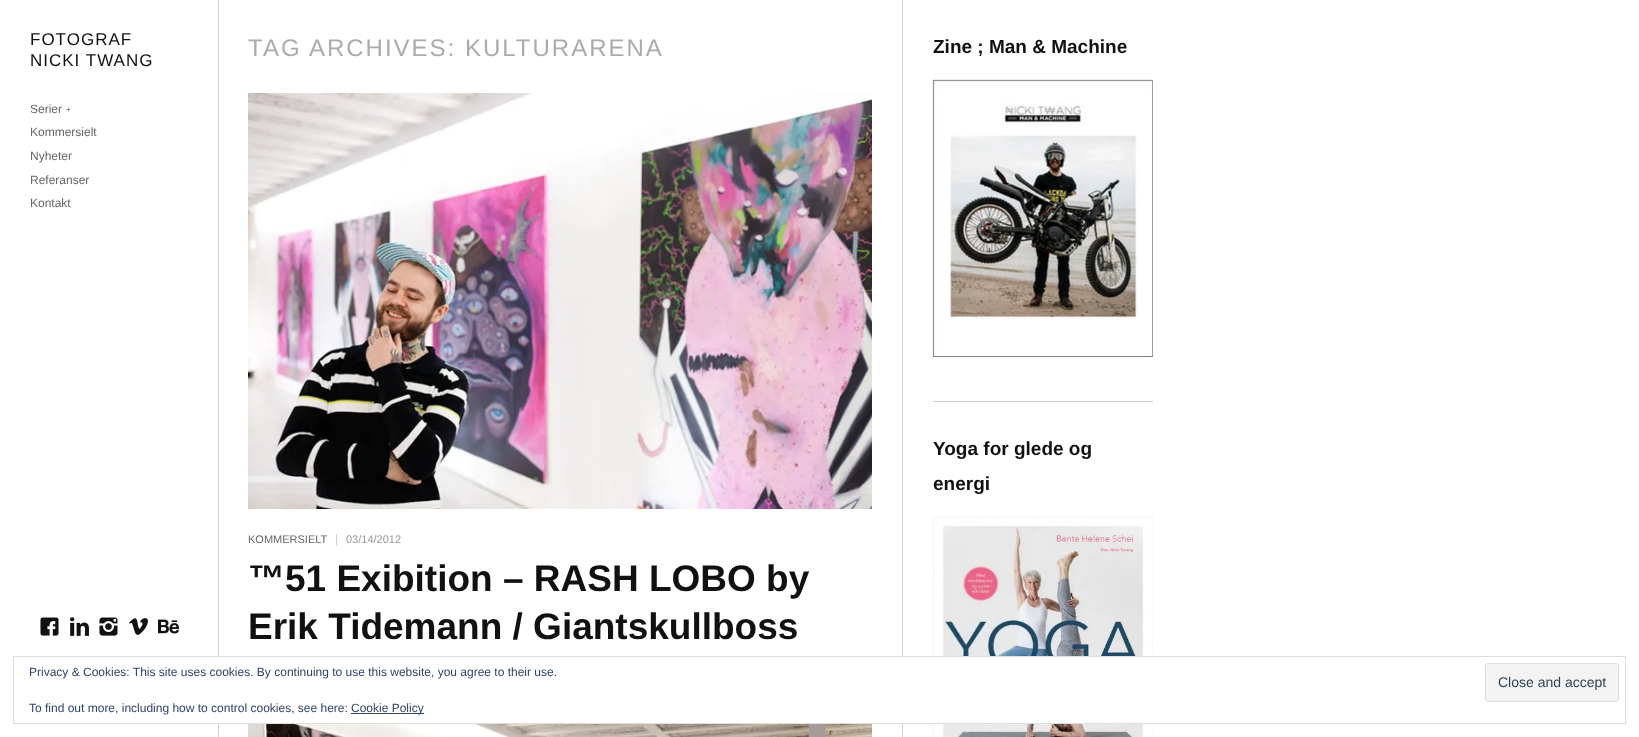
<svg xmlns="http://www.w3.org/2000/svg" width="1639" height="737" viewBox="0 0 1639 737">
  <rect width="100%" height="100%" fill="rgb(255,255,255)"/>
  <rect x="218" y="0" width="1" height="737" fill="rgb(207,207,207)"/>
  <g font-family="Liberation Sans" font-size="17" letter-spacing="1" fill="rgb(17,17,17)">
    <text>
      <tspan x="30" y="45">FOTOGRAF</tspan>
      <tspan x="30" y="66">NICKI TWANG</tspan>
    </text>
  </g>
  <text x="30" y="113" font-family="Liberation Sans" font-size="12" fill="rgb(102,102,102)">Serier</text>
  <text x="66" y="112" font-family="Liberation Sans" font-size="8" fill="rgb(102,102,102)">+</text>
  <g font-family="Liberation Sans" font-size="12" fill="rgb(102,102,102)">
    <text x="30" y="136">Kommersielt</text>
    <text x="30" y="160">Nyheter</text>
    <text>
      <tspan x="30" y="184">Referanser</tspan>
      <tspan x="30" y="207">Kontakt</tspan>
    </text>
  </g>
  <image x="40" y="617" width="19" height="19" href="pic1.png"/>
  <image x="70" y="617" width="19" height="19" href="pic2.png"/>
  <image x="99" y="617" width="19" height="19" href="pic3.png"/>
  <image x="129" y="618" width="19" height="17" href="pic4.png"/>
  <image x="158" y="619" width="21" height="15" href="pic5.png"/>
  <text x="248" y="56" font-family="Liberation Sans" font-size="24" letter-spacing="2" fill="rgb(171,171,171)">TAG ARCHIVES: KULTURARENA</text>
  <image x="248" y="93" width="624" height="416" href="pic6.png"/>
  <text x="248" y="543" font-family="Liberation Sans" font-size="11" fill="rgb(102,102,102)">KOMMERSIELT</text>
  <text x="335" y="543" font-family="Liberation Sans" font-size="12" fill="rgb(207,207,207)">|</text>
  <text x="346" y="543" font-family="Liberation Sans" font-size="11" fill="rgb(153,153,153)">03/14/2012</text>
  <g font-family="Liberation Sans" font-size="37" font-weight="bold" fill="rgb(17,17,17)">
    <text>
      <tspan x="248" y="591">™51 Exibition – RASH LOBO by</tspan>
      <tspan x="248" y="639">Erik Tidemann / Giantskullboss</tspan>
    </text>
  </g>
  <image x="248" y="724" width="624" height="13" href="pic7.png"/>
  <rect x="902" y="0" width="1" height="737" fill="rgb(207,207,207)"/>
  <rect x="933" y="401" width="220" height="1" fill="rgb(207,207,207)"/>
  <text x="933" y="53" font-family="Liberation Sans" font-size="19" font-weight="bold" fill="rgb(17,17,17)">Zine ; Man &amp; Machine</text>
  <image x="932" y="79" width="221" height="278" href="pic8.png"/>
  <g font-family="Liberation Sans" font-size="19" font-weight="bold" fill="rgb(17,17,17)">
    <text>
      <tspan x="933" y="455">Yoga for glede og</tspan>
      <tspan x="933" y="490">energi</tspan>
    </text>
  </g>
  <image x="933" y="516" width="220" height="221" href="pic9.png"/>
  <rect x="218" y="657" width="935" height="66" fill="rgb(255,255,255)"/>
  <rect x="13.5" y="656.5" width="1612" height="67" fill="none" stroke="rgb(222,222,222)"/>
  <text x="29" y="676" font-family="Liberation Sans" font-size="12" fill="rgb(46,68,103)">Privacy &amp; Cookies: This site uses cookies. By continuing to use this website, you agree to their use.</text>
  <rect x="1485.5" y="663.5" width="133" height="38" rx="2.5" fill="rgb(243,243,243)" stroke="rgb(222,222,222)"/>
  <text x="1498" y="687" font-family="Liberation Sans" font-size="14" fill="rgb(46,68,83)">Close and accept</text>
  <text x="29" y="712" font-family="Liberation Sans" font-size="12" fill="rgb(46,68,103)">To find out more, including how to control cookies, see here:</text>
  <rect x="351" y="713" width="73" height="1" fill="rgb(46,68,103)"/>
  <text x="351" y="712" font-family="Liberation Sans" font-size="12" fill="rgb(46,68,103)">Cookie Policy</text>
</svg>
